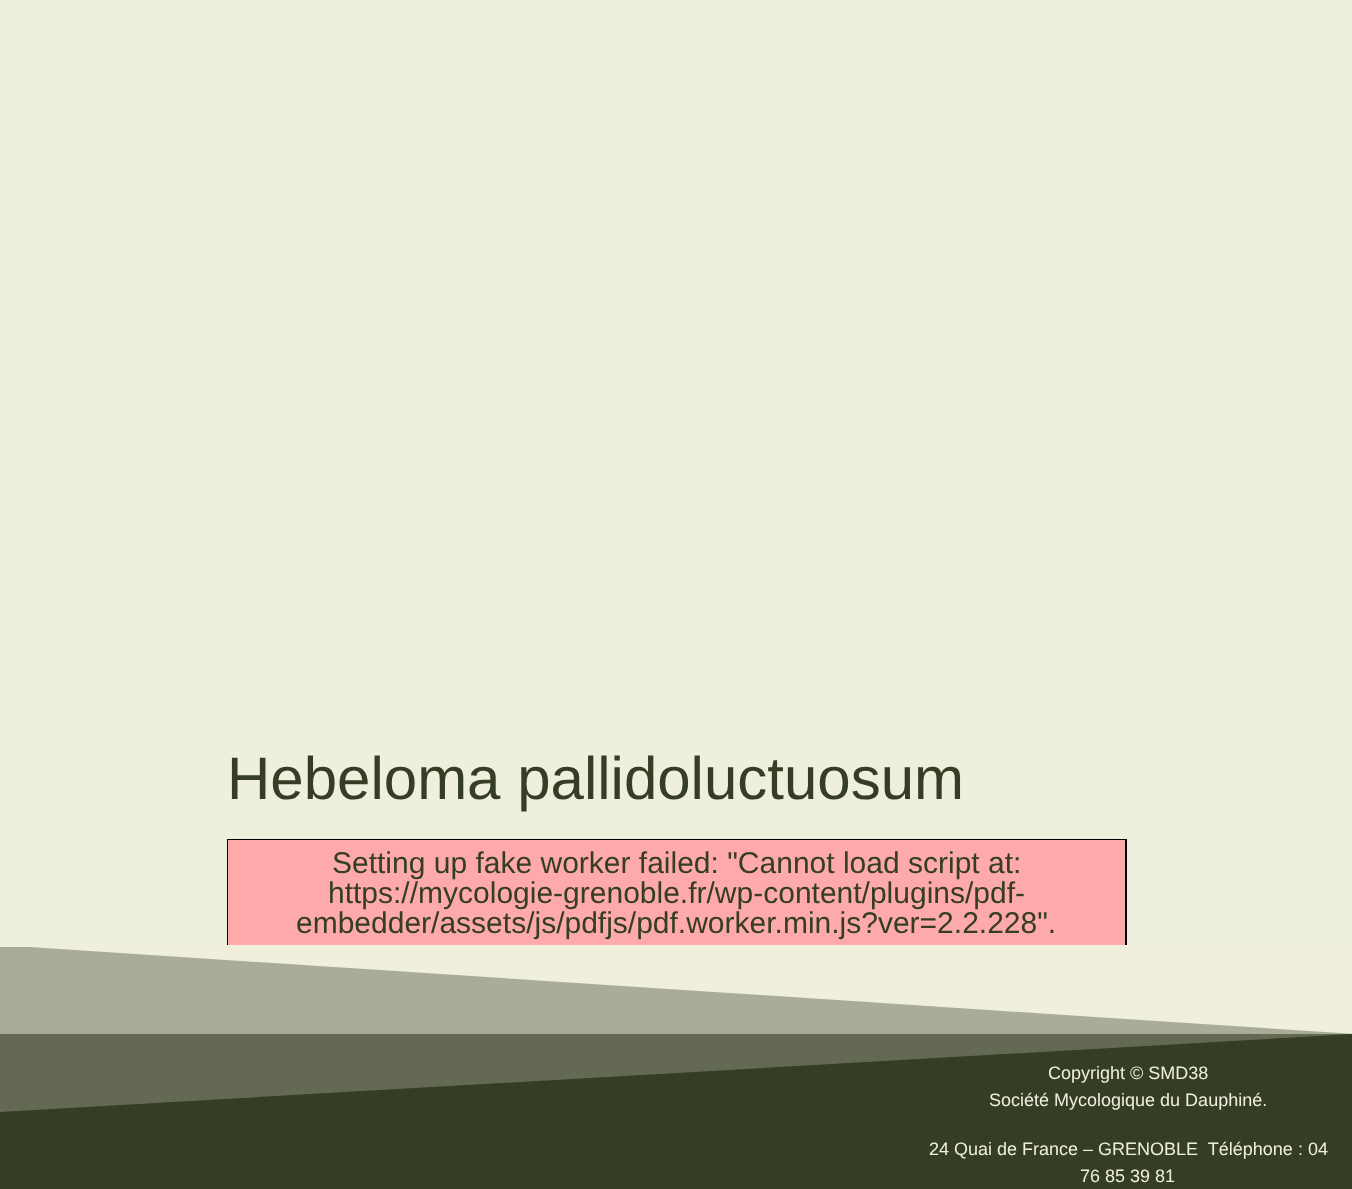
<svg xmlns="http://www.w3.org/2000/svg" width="1352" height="1189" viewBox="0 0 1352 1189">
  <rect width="100%" height="100%" fill="rgb(239,239,221)"/>
  <text x="227" y="799" font-family="Liberation Sans" font-size="60" fill="rgb(53,61,37)">Hebeloma pallidoluctuosum</text>
  <rect x="228" y="840" width="898" height="106" fill="none" stroke="rgb(0,0,0)" stroke-width="2"/>
  <rect x="228" y="840" width="897" height="105" fill="rgb(255,170,170)"/>
  <g font-family="Liberation Sans" font-size="30" fill="rgb(53,61,37)">
    <text x="332" y="873">Setting up fake worker failed: "Cannot load script at:</text>
    <text x="328" y="903">https://mycologie-grenoble.fr/wp-content/plugins/pdf-</text>
    <text x="296" y="933">embedder/assets/js/pdfjs/pdf.worker.min.js?ver=2.2.228".</text>
  </g>
  <rect x="0" y="947" width="1352" height="242" fill="rgb(53,61,37)"/>
  <path d="M-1 945H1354V1034Z" fill="rgb(239,239,221)"/>
  <rect x="0" y="947" width="1352" height="87" fill="rgba(239,239,221,0.5)"/>
  <path d="M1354 945H-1V1112L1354 1034Z" fill="rgba(239,239,221,0.25)"/>
  <g font-family="Liberation Sans" font-size="18" fill="rgb(239,239,221)">
    <text x="1048" y="1079">Copyright © SMD38</text>
    <text x="989" y="1106">Société Mycologique du Dauphiné.</text>
    <text x="929" y="1155" xml:space="preserve">24 Quai de France – GRENOBLE  Téléphone : 04</text>
    <text x="1080" y="1182">76 85 39 81</text>
  </g>
</svg>
